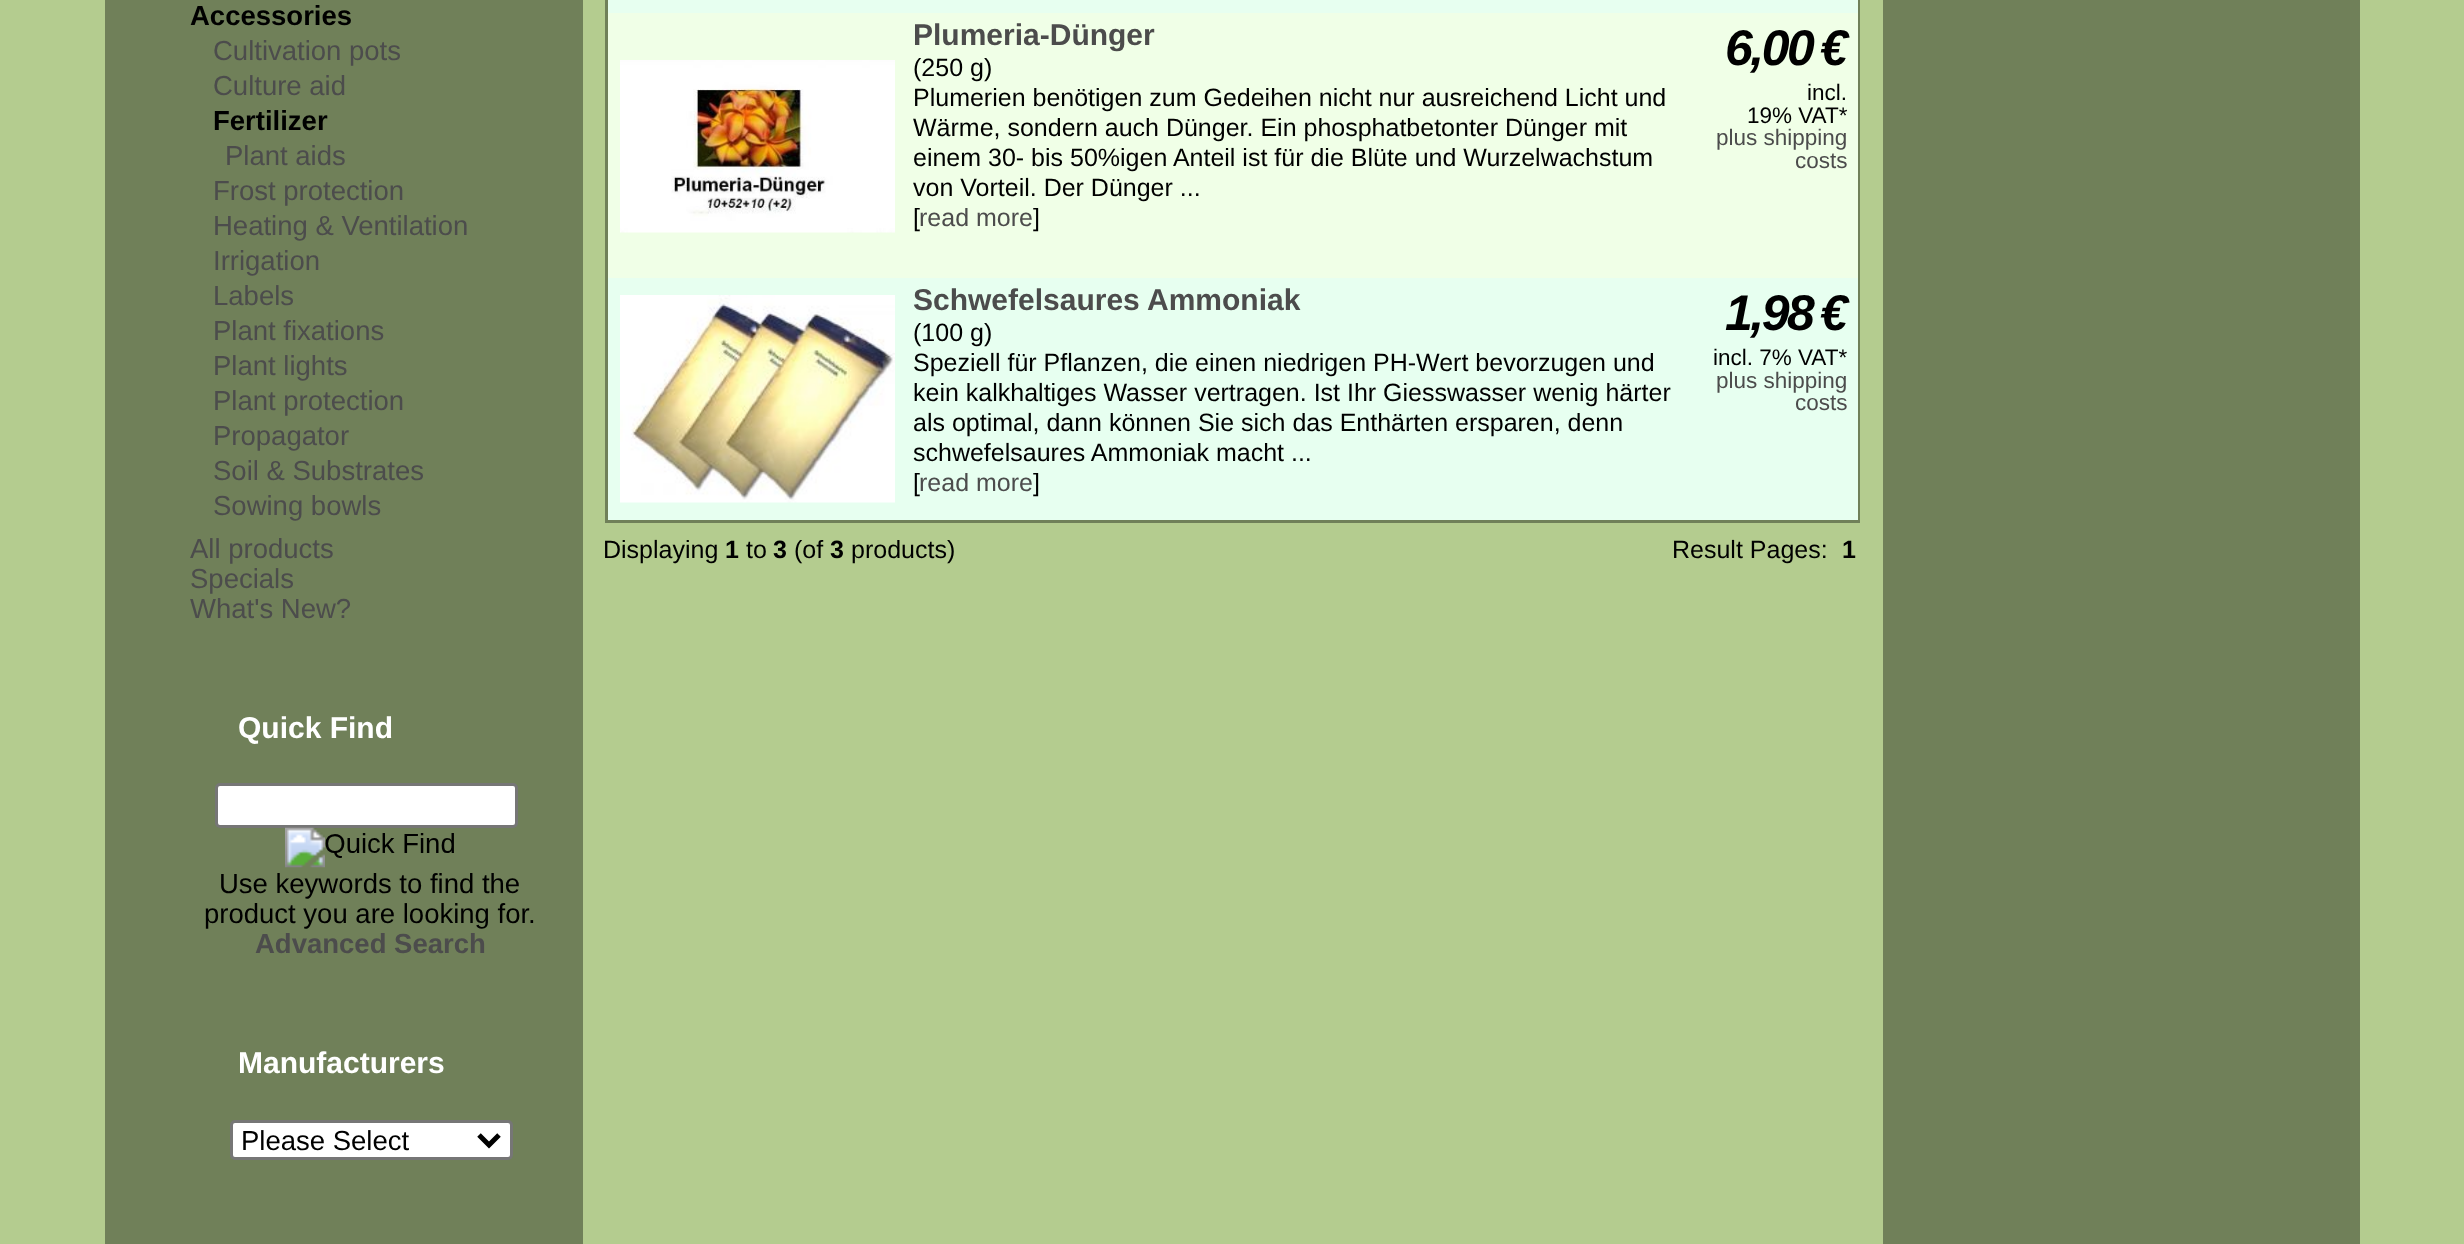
<svg xmlns="http://www.w3.org/2000/svg" width="2464" height="1244" viewBox="0 0 2464 1244">
  <rect width="100%" height="100%" fill="rgb(180,204,143)"/>
  <rect x="106.5" y="-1.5" width="2252" height="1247" fill="none" stroke="rgb(112,128,89)" stroke-width="3"/>
  <rect x="108" y="0" width="475" height="1244" fill="rgb(112,128,89)"/>
  <text x="190" y="25" font-family="Liberation Sans" font-size="27.5" font-weight="bold" fill="rgb(0,0,0)">Accessories</text>
  <g font-family="Liberation Sans" font-size="27.5" fill="rgb(76,76,76)">
    <text>
      <tspan x="213" y="60">Cultivation pots</tspan>
      <tspan x="213" y="95">Culture aid</tspan>
    </text>
  </g>
  <text x="213" y="130" font-family="Liberation Sans" font-size="27.5" font-weight="bold" fill="rgb(0,0,0)">Fertilizer</text>
  <g font-family="Liberation Sans" font-size="27.5" fill="rgb(76,76,76)">
    <text x="225" y="165">Plant aids</text>
    <text>
      <tspan x="213" y="200">Frost protection</tspan>
      <tspan x="213" y="235">Heating &amp; Ventilation</tspan>
      <tspan x="213" y="270">Irrigation</tspan>
      <tspan x="213" y="305">Labels</tspan>
      <tspan x="213" y="340">Plant fixations</tspan>
      <tspan x="213" y="375">Plant lights</tspan>
      <tspan x="213" y="410">Plant protection</tspan>
      <tspan x="213" y="445">Propagator</tspan>
      <tspan x="213" y="480">Soil &amp; Substrates</tspan>
      <tspan x="213" y="515">Sowing bowls</tspan>
    </text>
    <text>
      <tspan x="190" y="558">All products</tspan>
      <tspan x="190" y="588">Specials</tspan>
      <tspan x="190" y="618">What's New?</tspan>
    </text>
  </g>
  <text x="238" y="738" font-family="Liberation Sans" font-size="30" font-weight="bold" fill="rgb(255,255,255)">Quick Find</text>
  <rect x="216.5" y="784.5" width="300" height="42" rx="3.5" fill="rgb(255,255,255)" stroke="rgb(118,118,118)" stroke-width="3"/>
  <image x="285" y="827" width="169" height="41" href="pic1.png"/>
  <g font-family="Liberation Sans" font-size="27.5" fill="rgb(0,0,0)">
    <text x="219" y="893">Use keywords to find the</text>
    <text x="204" y="923">product you are looking for.</text>
  </g>
  <text x="255" y="953" font-family="Liberation Sans" font-size="27.5" font-weight="bold" fill="rgb(76,76,76)">Advanced Search</text>
  <text x="238" y="1073" font-family="Liberation Sans" font-size="30" font-weight="bold" fill="rgb(255,255,255)">Manufacturers</text>
  <rect x="231.5" y="1121.5" width="280" height="37" rx="3.5" fill="rgb(255,255,255)" stroke="rgb(118,118,118)" stroke-width="3"/>
  <path d="M479 1135L489 1145L499 1135" fill="none" stroke="rgb(0,0,0)" stroke-width="5"/>
  <text x="241" y="1150" font-family="Liberation Sans" font-size="27.5" fill="rgb(0,0,0)">Please Select</text>
  <rect x="606.5" y="-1.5" width="1252" height="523" fill="none" stroke="rgb(112,128,89)" stroke-width="3"/>
  <rect x="608" y="0" width="1250" height="13" fill="rgb(231,255,240)"/>
  <rect x="608" y="13" width="1250" height="265" fill="rgb(240,255,231)"/>
  <image x="620" y="60" width="275" height="173" href="pic2.png"/>
  <text x="913" y="45" font-family="Liberation Sans" font-size="30" font-weight="bold" fill="rgb(76,76,76)">Plumeria-Dünger</text>
  <g font-family="Liberation Sans" font-size="25" fill="rgb(0,0,0)">
    <text>
      <tspan x="913" y="76">(250 g)</tspan>
      <tspan x="913" y="106">Plumerien benötigen zum Gedeihen nicht nur ausreichend Licht und</tspan>
      <tspan x="913" y="136">Wärme, sondern auch Dünger. Ein phosphatbetonter Dünger mit</tspan>
      <tspan x="913" y="166">einem 30- bis 50%igen Anteil ist für die Blüte und Wurzelwachstum</tspan>
      <tspan x="913" y="196">von Vorteil. Der Dünger ...</tspan>
      <tspan x="913" y="226">[</tspan>
    </text>
  </g>
  <text x="919" y="226" font-family="Liberation Sans" font-size="25" fill="rgb(76,76,76)">read more</text>
  <text x="1033" y="226" font-family="Liberation Sans" font-size="25" fill="rgb(0,0,0)">]</text>
  <g font-family="Liberation Sans" font-size="50" font-weight="bold" font-style="italic" letter-spacing="-2.5" fill="rgb(0,0,0)">
    <text x="1725" y="65">6,00</text>
    <text x="1820" y="65">€</text>
  </g>
  <g font-family="Liberation Sans" font-size="22.5" fill="rgb(0,0,0)">
    <text x="1807" y="100">incl.</text>
    <text x="1747" y="123">19% VAT*</text>
  </g>
  <g font-family="Liberation Sans" font-size="22.5" fill="rgb(76,76,76)">
    <text x="1716" y="145">plus shipping</text>
    <text x="1795" y="168">costs</text>
  </g>
  <rect x="608" y="278" width="1250" height="242" fill="rgb(231,255,240)"/>
  <image x="620" y="295" width="275" height="208" href="pic3.png"/>
  <text x="913" y="310" font-family="Liberation Sans" font-size="30" font-weight="bold" fill="rgb(76,76,76)">Schwefelsaures Ammoniak</text>
  <g font-family="Liberation Sans" font-size="25" fill="rgb(0,0,0)">
    <text>
      <tspan x="913" y="341">(100 g)</tspan>
      <tspan x="913" y="371">Speziell für Pflanzen, die einen niedrigen PH-Wert bevorzugen und</tspan>
      <tspan x="913" y="401">kein kalkhaltiges Wasser vertragen. Ist Ihr Giesswasser wenig härter</tspan>
      <tspan x="913" y="431">als optimal, dann können Sie sich das Enthärten ersparen, denn</tspan>
      <tspan x="913" y="461">schwefelsaures Ammoniak macht ...</tspan>
      <tspan x="913" y="491">[</tspan>
    </text>
  </g>
  <text x="919" y="491" font-family="Liberation Sans" font-size="25" fill="rgb(76,76,76)">read more</text>
  <text x="1033" y="491" font-family="Liberation Sans" font-size="25" fill="rgb(0,0,0)">]</text>
  <g font-family="Liberation Sans" font-size="50" font-weight="bold" font-style="italic" letter-spacing="-2.5" fill="rgb(0,0,0)">
    <text x="1725" y="330">1,98</text>
    <text x="1820" y="330">€</text>
  </g>
  <text x="1713" y="365" font-family="Liberation Sans" font-size="22.5" fill="rgb(0,0,0)">incl. 7% VAT*</text>
  <g font-family="Liberation Sans" font-size="22.5" fill="rgb(76,76,76)">
    <text x="1716" y="388">plus shipping</text>
    <text x="1795" y="410">costs</text>
  </g>
  <text x="603" y="558" font-family="Liberation Sans" font-size="25" fill="rgb(0,0,0)">Displaying</text>
  <text x="725" y="558" font-family="Liberation Sans" font-size="25" font-weight="bold" fill="rgb(0,0,0)">1</text>
  <text x="746" y="558" font-family="Liberation Sans" font-size="25" fill="rgb(0,0,0)">to</text>
  <text x="773" y="558" font-family="Liberation Sans" font-size="25" font-weight="bold" fill="rgb(0,0,0)">3</text>
  <text x="794" y="558" font-family="Liberation Sans" font-size="25" fill="rgb(0,0,0)">(of</text>
  <text x="830" y="558" font-family="Liberation Sans" font-size="25" font-weight="bold" fill="rgb(0,0,0)">3</text>
  <g font-family="Liberation Sans" font-size="25" fill="rgb(0,0,0)">
    <text x="851" y="558">products)</text>
    <text x="1672" y="558">Result Pages:</text>
  </g>
  <text x="1842" y="558" font-family="Liberation Sans" font-size="25" font-weight="bold" fill="rgb(0,0,0)">1</text>
  <rect x="1883" y="0" width="474" height="1244" fill="rgb(112,128,89)"/>
</svg>
